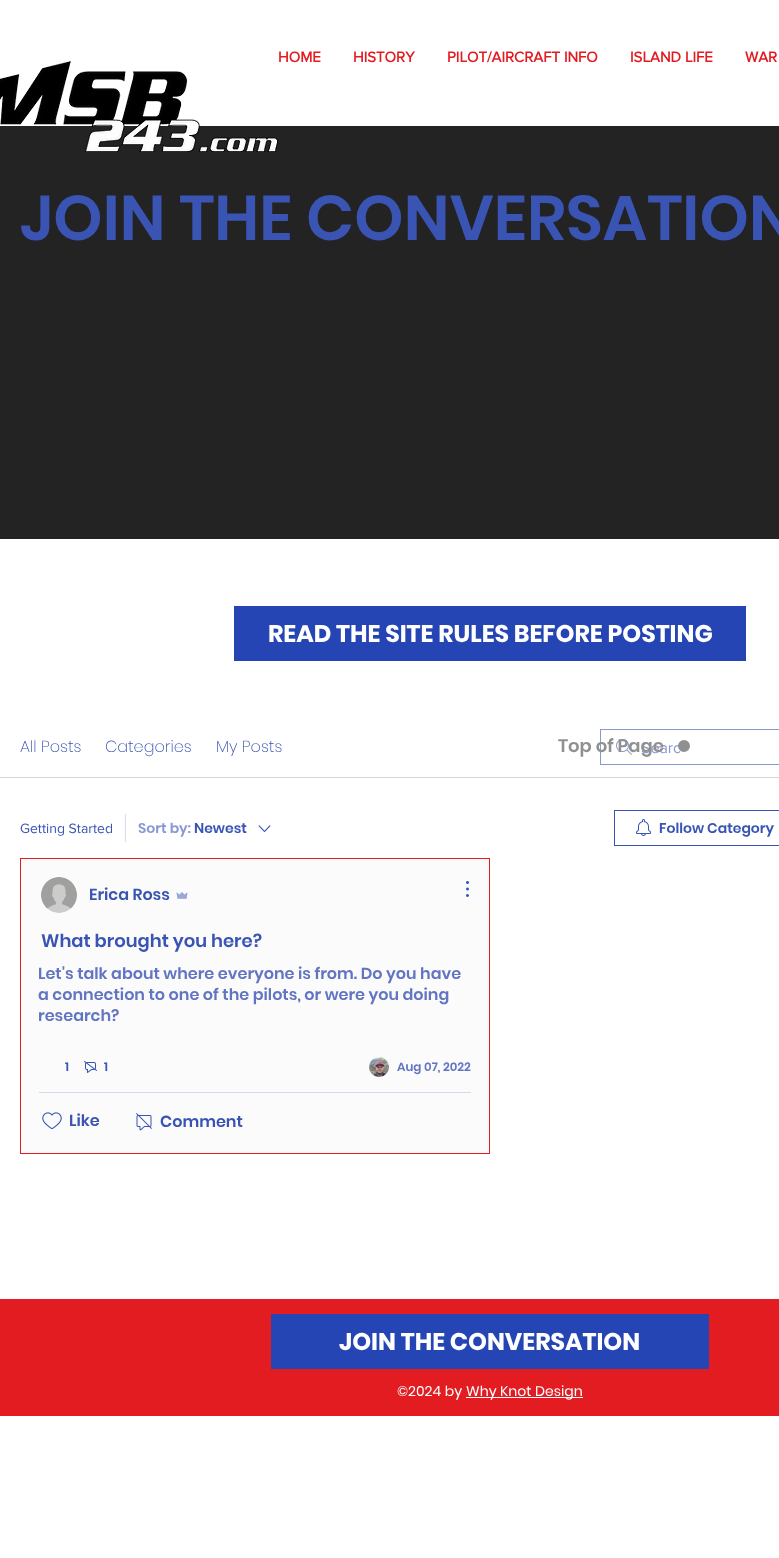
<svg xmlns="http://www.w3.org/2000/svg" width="779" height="1558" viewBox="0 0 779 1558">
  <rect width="100%" height="100%" fill="rgb(255,255,255)"/>
  <g font-family="'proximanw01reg'" font-size="15" font-weight="bold" fill="rgb(226,28,33)">
    <text x="278" y="62">HOME</text>
    <text x="353" y="62">HISTORY</text>
    <text x="447" y="62">PILOT/AIRCRAFT INFO</text>
    <text x="630" y="62">ISLAND LIFE</text>
    <text x="745" y="62">WAR</text>
  </g>
  <rect x="0" y="126" width="779" height="413" fill="rgb(36,35,35)"/>
  <image x="0" y="61" width="278" height="91" href="pic1.png"/>
  <text x="20" y="240" font-family="Poppins" font-size="63" font-weight="600" fill="rgb(58,84,180)">JOIN THE CONVERSATION</text>
  <rect x="234" y="606" width="512" height="55" fill="rgb(36,69,179)"/>
  <text x="268" y="642" font-family="Poppins" font-size="24" font-weight="bold" fill="rgb(255,255,255)">READ THE SITE RULES BEFORE POSTING</text>
  <rect x="0" y="777" width="779" height="1" fill="rgb(214,214,214)"/>
  <g font-family="Poppins" font-size="16" font-weight="200" fill="rgb(58,84,180)">
    <text x="20" y="752">All Posts</text>
    <text x="105" y="752">Categories</text>
    <text x="216" y="752">My Posts</text>
  </g>
  <image x="616" y="739" width="16" height="16" href="pic2.png"/>
  <rect x="600.5" y="729.5" width="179" height="35" fill="none" stroke="rgb(137,152,210)"/>
  <text x="641" y="753" font-family="'proximanw01reg'" font-size="16" fill="rgb(137,152,210)">Searc</text>
  <text x="20" y="833" font-family="'proximanw01reg'" font-size="14" fill="rgb(58,84,180)">Getting Started</text>
  <rect x="125" y="814" width="1" height="28" fill="rgb(216,221,240)"/>
  <text x="138" y="833" font-family="Poppins" font-size="14" font-weight="600" fill="rgb(137,152,210)">Sort by:</text>
  <text x="194" y="833" font-family="Poppins" font-size="14" font-weight="600" fill="rgb(58,84,180)">Newest</text>
  <image x="258" y="825" width="13" height="8" href="pic3.png"/>
  <rect x="614.5" y="810.5" width="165" height="35" fill="none" stroke="rgb(58,84,180)"/>
  <image x="636" y="819" width="15" height="17" href="pic4.png"/>
  <text x="659" y="833" font-family="Poppins" font-size="14" font-weight="600" fill="rgb(58,84,180)">Follow Category</text>
  <rect x="20.5" y="858.5" width="469" height="295" fill="rgb(251,251,251)" stroke="rgb(226,28,33)"/>
  <image x="41" y="877" width="36" height="36" href="pic5.png"/>
  <text x="89" y="900" font-family="Poppins" font-size="16" font-weight="600" fill="rgb(58,84,180)">Erica Ross</text>
  <image x="176" y="892" width="12" height="7" href="pic6.png"/>
  <image x="466" y="881" width="3" height="16" href="pic7.png"/>
  <text x="41" y="947" font-family="Poppins" font-size="18" font-weight="600" fill="rgb(58,84,180)">What brought you here?</text>
  <g font-family="Poppins" font-size="16" font-weight="600" fill="rgb(97,117,194)">
    <text>
      <tspan x="38" y="979">Let's talk about where everyone is from. Do you have</tspan>
      <tspan x="38" y="1000">a connection to one of the pilots, or were you doing</tspan>
      <tspan x="38" y="1021">research?</tspan>
    </text>
  </g>
  <text x="65" y="1071" font-family="Poppins" font-size="12" font-weight="600" fill="rgb(58,84,180)">1</text>
  <image x="84" y="1061" width="13" height="12" href="pic8.png"/>
  <text x="104" y="1071" font-family="Poppins" font-size="12" font-weight="600" fill="rgb(58,84,180)">1</text>
  <image x="369" y="1057" width="20" height="20" href="pic9.png"/>
  <text x="397" y="1071" font-family="Poppins" font-size="12" font-weight="600" fill="rgb(97,117,194)">Aug 07, 2022</text>
  <rect x="39" y="1092" width="432" height="1" fill="rgb(212,218,237)"/>
  <image x="42" y="1112" width="20" height="18" href="pic10.png"/>
  <text x="69" y="1126" font-family="Poppins" font-size="16" font-weight="600" fill="rgb(58,84,180)">Like</text>
  <image x="136" y="1113" width="16" height="18" href="pic11.png"/>
  <text x="160" y="1127" font-family="Poppins" font-size="16" font-weight="600" fill="rgb(58,84,180)">Comment</text>
  <text x="558" y="752" font-family="Poppins" font-size="18" font-weight="600" fill="rgb(144,144,144)">Top of Page</text>
  <circle cx="684" cy="746" r="5" fill="rgb(144,144,144)" stroke="rgb(144,144,144)" stroke-width="2"/>
  <rect x="0" y="1299" width="779" height="117" fill="rgb(226,28,33)"/>
  <rect x="271" y="1314" width="438" height="55" fill="rgb(36,69,179)"/>
  <text x="339" y="1350" font-family="Poppins" font-size="24" font-weight="bold" fill="rgb(255,255,255)">JOIN THE CONVERSATION</text>
  <text x="397" y="1396" font-family="Poppins" font-size="14" fill="rgb(255,255,255)">©2024 by</text>
  <rect x="466" y="1397" width="117" height="1" fill="rgb(255,255,255)"/>
  <text x="466" y="1396" font-family="Poppins" font-size="14" fill="rgb(255,255,255)">Why Knot Design</text>
</svg>
